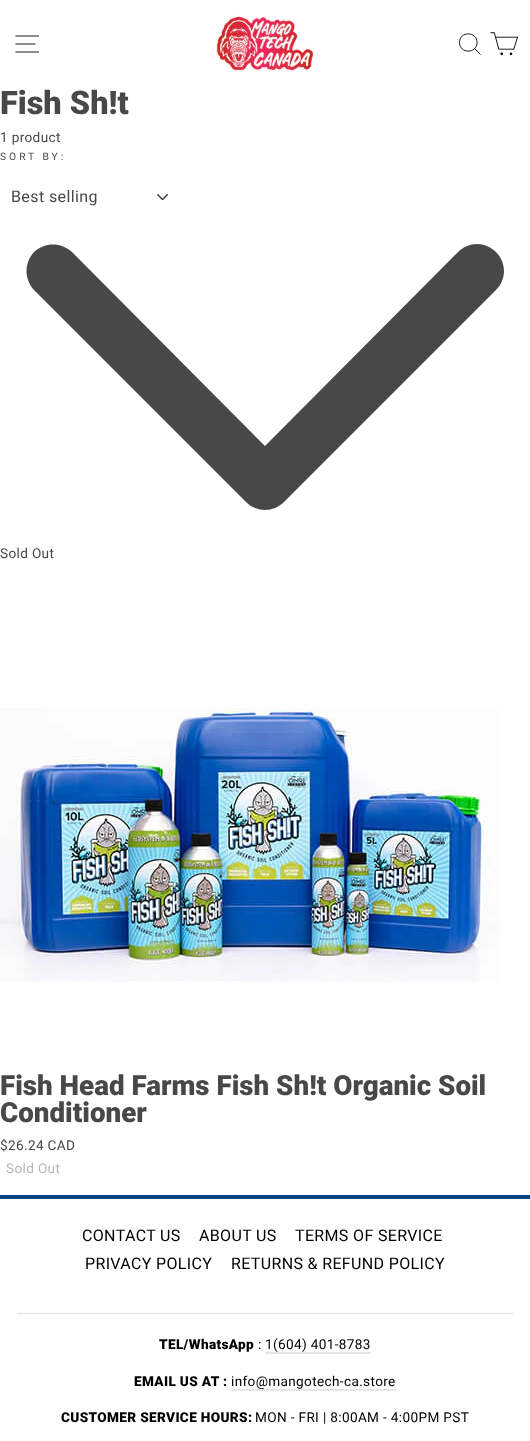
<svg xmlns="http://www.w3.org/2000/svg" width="530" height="1441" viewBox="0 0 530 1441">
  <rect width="100%" height="100%" fill="rgb(255,255,255)"/>
  <path d="M15.5 36H39M15.5 44H35.5M15.5 52H39" fill="none" stroke="rgb(0,0,0)" stroke-width="0.9"/>
  <image x="215" y="15" width="100" height="57" href="pic1.png"/>
  <path d="M477 42.5C477 54 459.5 54 459.5 42.5C459.5 31 477 31 477 42.5ZM480.5 54.5L474.5 48.5" fill="none" stroke="rgb(0,0,0)" stroke-width="0.9"/>
  <image x="490" y="32" width="28" height="24" href="pic2.png"/>
  <text x="0" y="114" font-family="Roboto" font-size="32.5" font-weight="900" fill="rgb(72,72,72)">Fish Sh!t</text>
  <text x="0" y="142" font-family="Roboto" font-size="13.6" letter-spacing="0.35" fill="rgb(72,72,72)">1 product</text>
  <text x="0" y="160" font-family="Roboto" font-size="10.25" letter-spacing="3" fill="rgb(72,72,72)">SORT BY:</text>
  <image x="157" y="194" width="11" height="6" href="pic3.png"/>
  <text x="11" y="202" font-family="Roboto" font-size="16" letter-spacing="0.4" fill="rgb(72,72,72)">Best selling</text>
  <path d="M496 252C491 247 484 244 477 244C470 244 463 247 458 252L265 446L72 252C61 242 45 242 34 252C24 263 24 279 34 290L246 502C251 507 258 510 265 510C272 510 279 507 284 502L496 290C501 285 504 278 504 271C504 264 501 257 496 252Z" fill="rgb(72,72,72)" fill-rule="evenodd"/>
  <text x="0" y="558" font-family="Roboto" font-size="13.6" letter-spacing="0.35" fill="rgb(72,72,72)">Sold Out</text>
  <image x="0" y="708" width="500" height="274" href="pic4.png"/>
  <g font-family="Roboto" font-size="27.75" font-weight="900" fill="rgb(72,72,72)">
    <text>
      <tspan x="0" y="1095">Fish Head Farms Fish Sh!t Organic Soil</tspan>
      <tspan x="0" y="1122">Conditioner</tspan>
    </text>
  </g>
  <text x="0" y="1150" font-family="Roboto" font-size="13.6" letter-spacing="0.35" fill="rgb(72,72,72)">$26.24 CAD</text>
  <text x="6" y="1173" font-family="Roboto" font-size="13.6" letter-spacing="0.35" fill="rgb(183,183,183)">Sold Out</text>
  <rect x="0" y="1195" width="530" height="4" fill="rgb(1,67,128)"/>
  <g font-family="Roboto" font-size="16" letter-spacing="0.35" fill="rgb(0,0,0)">
    <text x="82" y="1241">CONTACT US</text>
    <text x="199" y="1241">ABOUT US</text>
    <text x="295" y="1241">TERMS OF SERVICE</text>
    <text x="85" y="1269">PRIVACY POLICY</text>
    <text x="231" y="1269">RETURNS &amp; REFUND POLICY</text>
  </g>
  <rect x="17" y="1313" width="496" height="1" fill="rgb(224,224,224)"/>
  <text x="159" y="1349" font-family="Roboto" font-size="13.6" font-weight="900" letter-spacing="0.35" fill="rgb(0,0,0)">TEL/WhatsApp</text>
  <text x="258" y="1349" font-family="Roboto" font-size="13.6" letter-spacing="0.35" fill="rgb(0,0,0)">:</text>
  <rect x="265" y="1352" width="106" height="2" fill="rgb(230,230,230)"/>
  <text x="265" y="1349" font-family="Roboto" font-size="13.6" letter-spacing="0.35" fill="rgb(0,0,0)">1(604) 401-8783</text>
  <text x="134" y="1386" font-family="Roboto" font-size="13.6" font-weight="900" letter-spacing="0.35" fill="rgb(0,0,0)">EMAIL US AT :</text>
  <text x="231" y="1386" font-family="Roboto" font-size="13.6" letter-spacing="0.35" fill="rgb(0,0,0)">info@mangotech-ca.store</text>
  <rect x="231" y="1389" width="165" height="2" fill="rgb(230,230,230)"/>
  <text x="61" y="1422" font-family="Roboto" font-size="13.6" font-weight="900" letter-spacing="0.35" fill="rgb(0,0,0)">CUSTOMER SERVICE HOURS:</text>
  <text x="255" y="1422" font-family="Roboto" font-size="13.6" letter-spacing="0.35" fill="rgb(0,0,0)">MON - FRI | 8:00AM - 4:00PM PST</text>
</svg>
